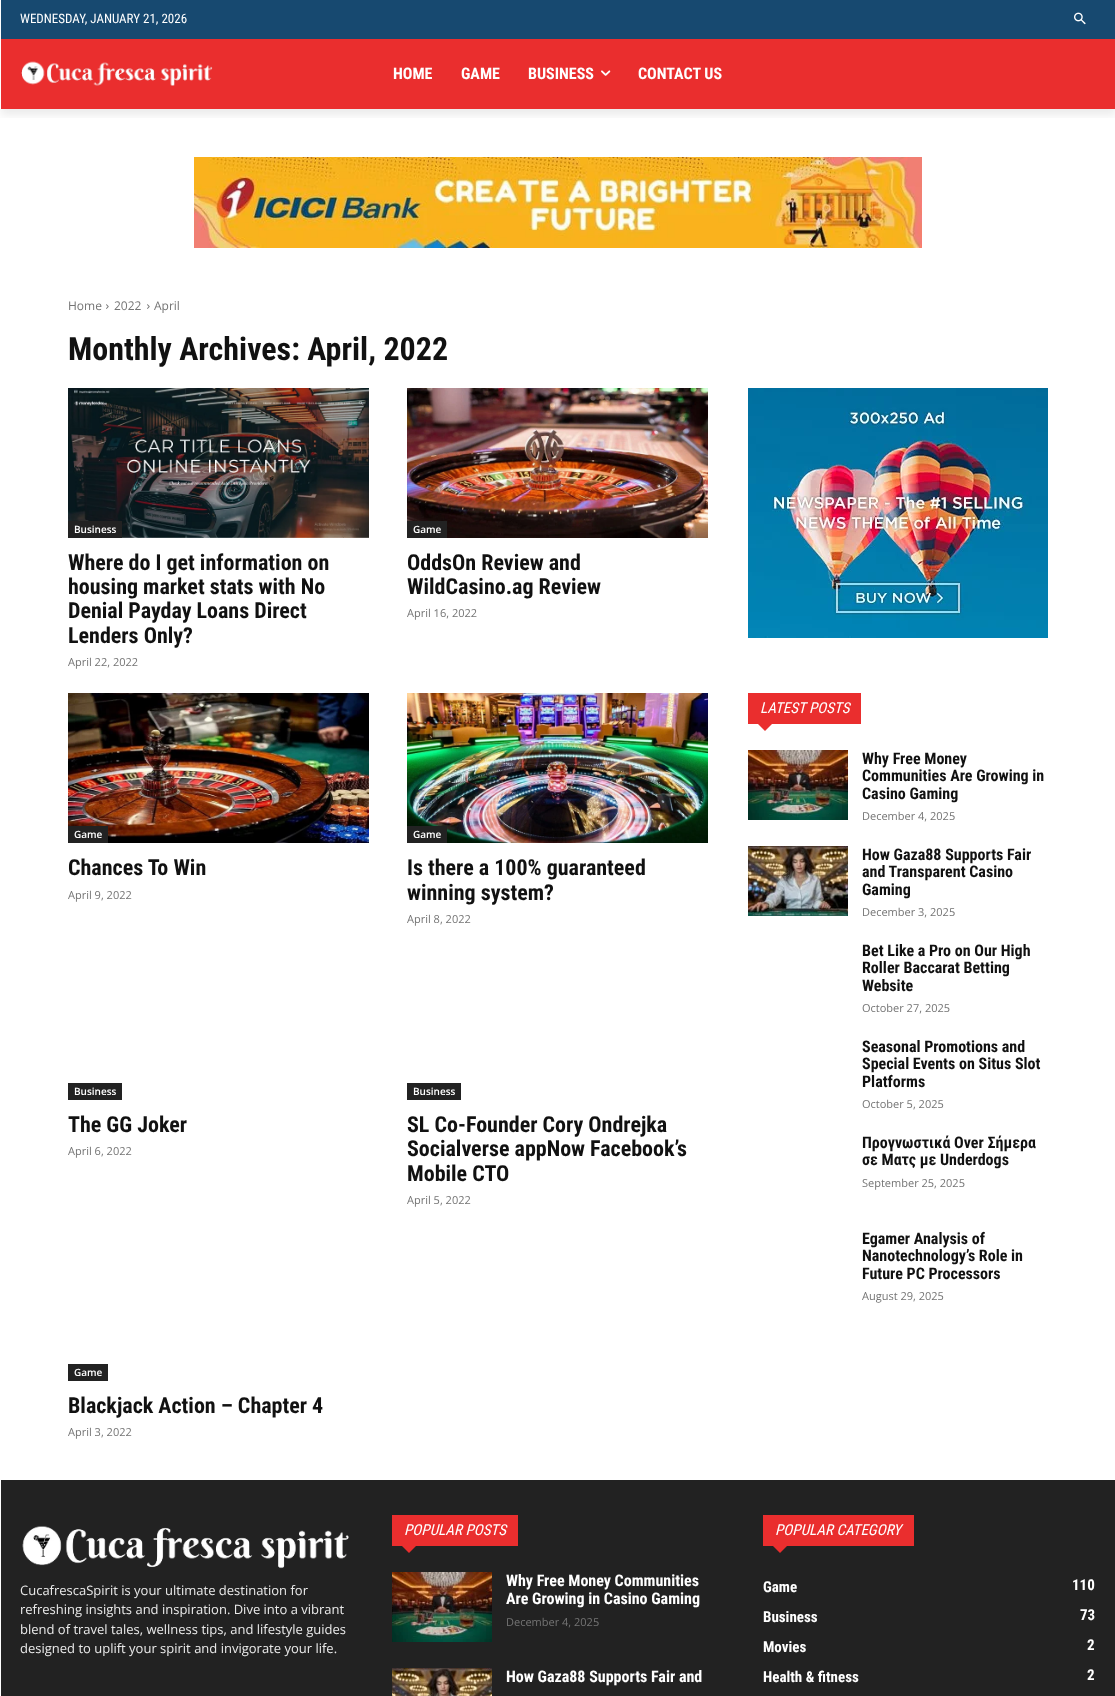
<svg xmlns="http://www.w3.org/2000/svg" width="1115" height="1696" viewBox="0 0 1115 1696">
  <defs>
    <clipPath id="clip1"><rect x="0" y="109" width="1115" height="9"/></clipPath>
  </defs>
  <rect width="100%" height="100%" fill="rgb(255,255,255)"/>
  <rect x="1" y="0" width="1114" height="39" fill="rgb(23,73,112)"/>
  <text x="20" y="23" font-family="Roboto Condensed" font-size="13" fill="rgb(255,255,255)">WEDNESDAY, JANUARY 21, 2026</text>
  <image x="1074" y="12" width="12" height="13" href="pic1.png"/>
  <rect x="1" y="39" width="1114" height="70" fill="rgb(234,46,46)"/>
  <image x="21" y="61" width="192" height="25" href="pic2.png"/>
  <g clip-path="url(#clip1)">
    <rect x="1" y="45" width="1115" height="70" fill="rgba(0,0,0,0.08)" filter="blur(4px)"/>
  </g>
  <g font-family="Roboto Condensed" font-size="16" font-weight="bold" fill="rgb(255,255,255)">
    <text x="393" y="79">HOME</text>
    <text x="461" y="79">GAME</text>
    <text x="528" y="79">BUSINESS</text>
  </g>
  <image x="601" y="70" width="10" height="6" href="pic3.png"/>
  <text x="638" y="79" font-family="Roboto Condensed" font-size="16" font-weight="bold" fill="rgb(255,255,255)">CONTACT US</text>
  <image x="194" y="157" width="728" height="91" href="pic4.png"/>
  <text x="68" y="310" font-family="Open Sans" font-size="12" fill="rgb(116,116,116)">Home</text>
  <image x="106" y="304" width="3" height="5" href="pic5.png"/>
  <text x="114" y="310" font-family="Open Sans" font-size="12" fill="rgb(116,116,116)">2022</text>
  <image x="147" y="304" width="3" height="5" href="pic5.png"/>
  <text x="154" y="310" font-family="Open Sans" font-size="12" fill="rgb(116,116,116)">April</text>
  <text x="68" y="360" font-family="Roboto Condensed" font-size="32" font-weight="bold" fill="rgb(17,17,17)">Monthly Archives: April, 2022</text>
  <image x="68" y="388" width="301" height="150" href="pic6.png"/>
  <rect x="68" y="521" width="54" height="17" fill="rgb(34,34,34)"/>
  <text x="74" y="533" font-family="Open Sans" font-size="10" font-weight="600" fill="rgb(255,255,255)">Business</text>
  <g font-family="Roboto Condensed" font-size="22" font-weight="bold" fill="rgb(17,17,17)">
    <text>
      <tspan x="68" y="570">Where do I get information on</tspan>
      <tspan x="68" y="594">housing market stats with No</tspan>
      <tspan x="68" y="618">Denial Payday Loans Direct</tspan>
      <tspan x="68" y="643">Lenders Only?</tspan>
    </text>
  </g>
  <text x="68" y="666" font-family="Open Sans" font-size="11" fill="rgb(116,116,116)">April 22, 2022</text>
  <image x="407" y="388" width="301" height="150" href="pic7.png"/>
  <rect x="407" y="521" width="40" height="17" fill="rgb(34,34,34)"/>
  <text x="413" y="533" font-family="Open Sans" font-size="10" font-weight="600" fill="rgb(255,255,255)">Game</text>
  <g font-family="Roboto Condensed" font-size="22" font-weight="bold" fill="rgb(17,17,17)">
    <text>
      <tspan x="407" y="570">OddsOn Review and</tspan>
      <tspan x="407" y="594">WildCasino.ag Review</tspan>
    </text>
  </g>
  <text x="407" y="617" font-family="Open Sans" font-size="11" fill="rgb(116,116,116)">April 16, 2022</text>
  <image x="68" y="693" width="301" height="150" href="pic8.png"/>
  <rect x="68" y="826" width="40" height="17" fill="rgb(34,34,34)"/>
  <text x="74" y="838" font-family="Open Sans" font-size="10" font-weight="600" fill="rgb(255,255,255)">Game</text>
  <text x="68" y="875" font-family="Roboto Condensed" font-size="22" font-weight="bold" fill="rgb(17,17,17)">Chances To Win</text>
  <text x="68" y="899" font-family="Open Sans" font-size="11" fill="rgb(116,116,116)">April 9, 2022</text>
  <image x="407" y="693" width="301" height="150" href="pic9.png"/>
  <rect x="407" y="826" width="40" height="17" fill="rgb(34,34,34)"/>
  <text x="413" y="838" font-family="Open Sans" font-size="10" font-weight="600" fill="rgb(255,255,255)">Game</text>
  <g font-family="Roboto Condensed" font-size="22" font-weight="bold" fill="rgb(17,17,17)">
    <text>
      <tspan x="407" y="875">Is there a 100% guaranteed</tspan>
      <tspan x="407" y="900">winning system?</tspan>
    </text>
  </g>
  <text x="407" y="923" font-family="Open Sans" font-size="11" fill="rgb(116,116,116)">April 8, 2022</text>
  <rect x="68" y="1083" width="54" height="17" fill="rgb(34,34,34)"/>
  <text x="74" y="1095" font-family="Open Sans" font-size="10" font-weight="600" fill="rgb(255,255,255)">Business</text>
  <text x="68" y="1132" font-family="Roboto Condensed" font-size="22" font-weight="bold" fill="rgb(17,17,17)">The GG Joker</text>
  <text x="68" y="1155" font-family="Open Sans" font-size="11" fill="rgb(116,116,116)">April 6, 2022</text>
  <rect x="407" y="1083" width="54" height="17" fill="rgb(34,34,34)"/>
  <text x="413" y="1095" font-family="Open Sans" font-size="10" font-weight="600" fill="rgb(255,255,255)">Business</text>
  <g font-family="Roboto Condensed" font-size="22" font-weight="bold" fill="rgb(17,17,17)">
    <text>
      <tspan x="407" y="1132">SL Co-Founder Cory Ondrejka</tspan>
      <tspan x="407" y="1156">Socialverse appNow Facebook’s</tspan>
      <tspan x="407" y="1181">Mobile CTO</tspan>
    </text>
  </g>
  <text x="407" y="1204" font-family="Open Sans" font-size="11" fill="rgb(116,116,116)">April 5, 2022</text>
  <rect x="68" y="1364" width="40" height="17" fill="rgb(34,34,34)"/>
  <text x="74" y="1376" font-family="Open Sans" font-size="10" font-weight="600" fill="rgb(255,255,255)">Game</text>
  <text x="68" y="1413" font-family="Roboto Condensed" font-size="22" font-weight="bold" fill="rgb(17,17,17)">Blackjack Action – Chapter 4</text>
  <text x="68" y="1436" font-family="Open Sans" font-size="11" fill="rgb(116,116,116)">April 3, 2022</text>
  <image x="748" y="388" width="300" height="250" href="pic10.png"/>
  <rect x="748" y="693" width="113" height="31" fill="rgb(234,46,46)"/>
  <text x="760" y="713" font-family="Roboto Condensed" font-size="15" font-style="italic" fill="rgb(255,255,255)">LATEST POSTS</text>
  <path d="M758 724H772L765 731Z" fill="rgb(234,46,46)"/>
  <image x="748" y="750" width="100" height="70" href="pic11.png"/>
  <g font-family="Roboto Condensed" font-size="16" font-weight="bold" fill="rgb(17,17,17)">
    <text>
      <tspan x="862" y="764">Why Free Money</tspan>
      <tspan x="862" y="781">Communities Are Growing in</tspan>
      <tspan x="862" y="799">Casino Gaming</tspan>
    </text>
  </g>
  <text x="862" y="820" font-family="Open Sans" font-size="11" fill="rgb(116,116,116)">December 4, 2025</text>
  <image x="748" y="846" width="100" height="70" href="pic12.png"/>
  <g font-family="Roboto Condensed" font-size="16" font-weight="bold" fill="rgb(17,17,17)">
    <text>
      <tspan x="862" y="860">How Gaza88 Supports Fair</tspan>
      <tspan x="862" y="877">and Transparent Casino</tspan>
      <tspan x="862" y="895">Gaming</tspan>
    </text>
  </g>
  <text x="862" y="916" font-family="Open Sans" font-size="11" fill="rgb(116,116,116)">December 3, 2025</text>
  <g font-family="Roboto Condensed" font-size="16" font-weight="bold" fill="rgb(17,17,17)">
    <text>
      <tspan x="862" y="956">Bet Like a Pro on Our High</tspan>
      <tspan x="862" y="973">Roller Baccarat Betting</tspan>
      <tspan x="862" y="991">Website</tspan>
    </text>
  </g>
  <text x="862" y="1012" font-family="Open Sans" font-size="11" fill="rgb(116,116,116)">October 27, 2025</text>
  <g font-family="Roboto Condensed" font-size="16" font-weight="bold" fill="rgb(17,17,17)">
    <text>
      <tspan x="862" y="1052">Seasonal Promotions and</tspan>
      <tspan x="862" y="1069">Special Events on Situs Slot</tspan>
      <tspan x="862" y="1087">Platforms</tspan>
    </text>
  </g>
  <text x="862" y="1108" font-family="Open Sans" font-size="11" fill="rgb(116,116,116)">October 5, 2025</text>
  <g font-family="Roboto Condensed" font-size="16" font-weight="bold" fill="rgb(17,17,17)">
    <text>
      <tspan x="862" y="1148">Προγνωστικά Over Σήμερα</tspan>
      <tspan x="862" y="1165">σε Ματς με Underdogs</tspan>
    </text>
  </g>
  <text x="862" y="1187" font-family="Open Sans" font-size="11" fill="rgb(116,116,116)">September 25, 2025</text>
  <g font-family="Roboto Condensed" font-size="16" font-weight="bold" fill="rgb(17,17,17)">
    <text>
      <tspan x="862" y="1244">Egamer Analysis of</tspan>
      <tspan x="862" y="1261">Nanotechnology’s Role in</tspan>
      <tspan x="862" y="1279">Future PC Processors</tspan>
    </text>
  </g>
  <text x="862" y="1300" font-family="Open Sans" font-size="11" fill="rgb(116,116,116)">August 29, 2025</text>
  <rect x="1" y="1480" width="1114" height="216" fill="rgb(34,34,34)"/>
  <image x="22" y="1526" width="327" height="43" href="pic13.png"/>
  <g font-family="Open Sans" font-size="13" fill="rgb(234,234,234)">
    <text>
      <tspan x="20" y="1595">CucafrescaSpirit is your ultimate destination for</tspan>
      <tspan x="20" y="1614">refreshing insights and inspiration. Dive into a vibrant</tspan>
      <tspan x="20" y="1634">blend of travel tales, wellness tips, and lifestyle guides</tspan>
      <tspan x="20" y="1653">designed to uplift your spirit and invigorate your life.</tspan>
    </text>
  </g>
  <rect x="392" y="1515" width="126" height="31" fill="rgb(234,46,46)"/>
  <text x="404" y="1535" font-family="Roboto Condensed" font-size="15" font-style="italic" fill="rgb(255,255,255)">POPULAR POSTS</text>
  <path d="M402 1546H416L409 1553Z" fill="rgb(234,46,46)"/>
  <image x="392" y="1572" width="100" height="70" href="pic11.png"/>
  <g font-family="Roboto Condensed" font-size="16" font-weight="bold" fill="rgb(255,255,255)">
    <text>
      <tspan x="506" y="1586">Why Free Money Communities</tspan>
      <tspan x="506" y="1604">Are Growing in Casino Gaming</tspan>
    </text>
  </g>
  <text x="506" y="1626" font-family="Open Sans" font-size="11" fill="rgb(116,116,116)">December 4, 2025</text>
  <image x="392" y="1668" width="100" height="28" href="pic14.png"/>
  <text x="506" y="1682" font-family="Roboto Condensed" font-size="16" font-weight="bold" fill="rgb(255,255,255)">How Gaza88 Supports Fair and</text>
  <rect x="763" y="1515" width="151" height="31" fill="rgb(234,46,46)"/>
  <text x="775" y="1535" font-family="Roboto Condensed" font-size="15" font-style="italic" fill="rgb(255,255,255)">POPULAR CATEGORY</text>
  <path d="M773 1546H787L780 1553Z" fill="rgb(234,46,46)"/>
  <g font-family="Roboto Condensed" font-size="15" font-weight="bold" fill="rgb(255,255,255)">
    <text x="763" y="1592">Game</text>
    <text x="1072" y="1590">110</text>
    <text x="763" y="1622">Business</text>
    <text x="1080" y="1620">73</text>
    <text x="763" y="1652">Movies</text>
    <text x="1087" y="1650">2</text>
    <text x="763" y="1682">Health &amp; fitness</text>
    <text x="1087" y="1680">2</text>
  </g>
</svg>
